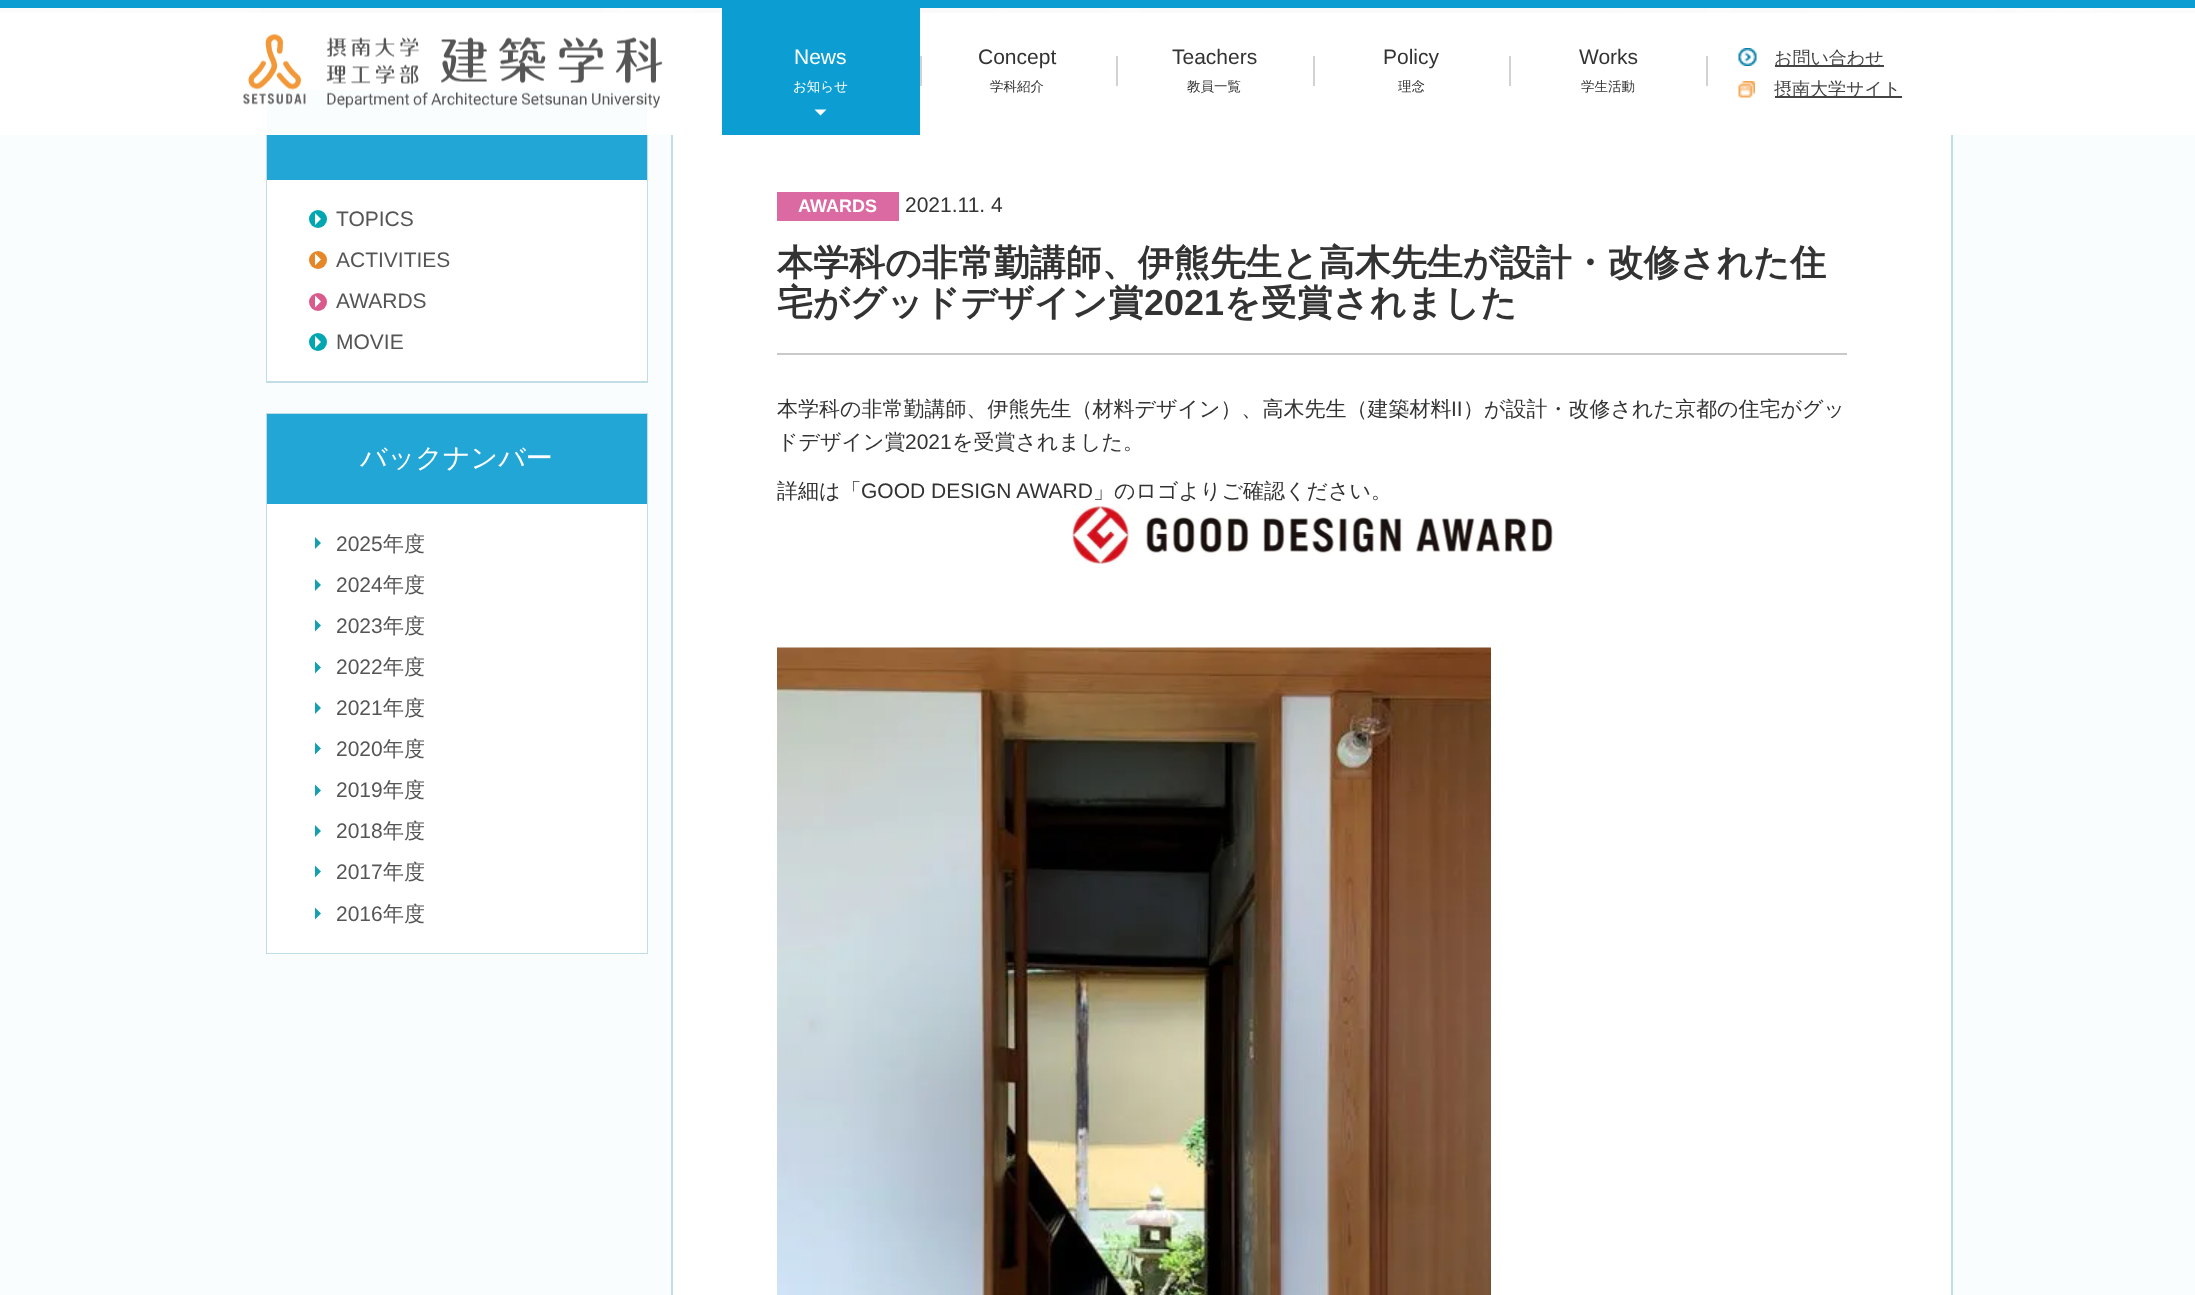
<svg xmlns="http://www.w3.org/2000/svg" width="2195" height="1295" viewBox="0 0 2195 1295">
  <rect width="100%" height="100%" fill="rgb(255,255,255)"/>
  <image x="0" y="8" width="2195" height="5" href="pic1.png"/>
  <rect x="0" y="14" width="2195" height="1281" fill="rgb(250,253,254)"/>
  <rect x="267" y="90" width="380" height="292" fill="none" stroke="rgb(193,221,231)" stroke-width="2"/>
  <rect x="267" y="90" width="380" height="90" fill="rgb(34,166,213)"/>
  <rect x="672" y="90" width="1280" height="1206" fill="rgb(255,255,255)" stroke="rgb(193,221,231)" stroke-width="2"/>
  <rect x="0" y="8" width="2195" height="127" fill="rgba(255,255,255,0.98)"/>
  <rect x="0" y="0" width="2195" height="8" fill="rgb(12,158,210)"/>
  <image x="243" y="34" width="420" height="75" href="pic2.png"/>
  <rect x="722" y="8" width="198" height="127" fill="rgb(12,158,210)"/>
  <text x="794" y="64" font-family="Liberation Sans" font-size="21" fill="rgb(255,255,255)">News</text>
  <text x="793" y="91" font-family="WenQuanYi Zen Hei" font-size="13.5" font-weight="500" fill="rgb(255,255,255)">お知らせ</text>
  <path d="M814.5 109.5H826.5L820.5 115.5Z" fill="rgb(255,255,255)"/>
  <rect x="920" y="56" width="2" height="30" fill="rgb(210,210,210)"/>
  <text x="978" y="64" font-family="Liberation Sans" font-size="21" fill="rgb(51,51,51)">Concept</text>
  <text x="990" y="91" font-family="WenQuanYi Zen Hei" font-size="13.5" font-weight="500" fill="rgb(51,51,51)">学科紹介</text>
  <rect x="1116" y="56" width="2" height="30" fill="rgb(210,210,210)"/>
  <text x="1172" y="64" font-family="Liberation Sans" font-size="21" fill="rgb(51,51,51)">Teachers</text>
  <text x="1187" y="91" font-family="WenQuanYi Zen Hei" font-size="13.5" font-weight="500" fill="rgb(51,51,51)">教員一覧</text>
  <rect x="1313" y="56" width="2" height="30" fill="rgb(210,210,210)"/>
  <text x="1383" y="64" font-family="Liberation Sans" font-size="21" fill="rgb(51,51,51)">Policy</text>
  <text x="1398" y="91" font-family="WenQuanYi Zen Hei" font-size="13.5" font-weight="500" fill="rgb(51,51,51)">理念</text>
  <rect x="1509" y="56" width="2" height="30" fill="rgb(210,210,210)"/>
  <text x="1579" y="64" font-family="Liberation Sans" font-size="21" fill="rgb(51,51,51)">Works</text>
  <text x="1581" y="91" font-family="WenQuanYi Zen Hei" font-size="13.5" font-weight="500" fill="rgb(51,51,51)">学生活動</text>
  <rect x="1706" y="56" width="2" height="30" fill="rgb(210,210,210)"/>
  <image x="1738" y="48" width="19" height="18" href="pic3.png"/>
  <rect x="1775" y="65" width="109" height="2" fill="rgb(68,68,68)"/>
  <text x="1774" y="64" font-family="WenQuanYi Zen Hei" font-size="18" font-weight="500" fill="rgb(68,68,68)">お問い合わせ</text>
  <image x="1738" y="81" width="17" height="17" href="pic4.png"/>
  <rect x="1775" y="96" width="127" height="2" fill="rgb(68,68,68)"/>
  <text x="1774" y="95" font-family="WenQuanYi Zen Hei" font-size="18" font-weight="500" fill="rgb(68,68,68)">摂南大学サイト</text>
  <rect x="267" y="180" width="380" height="201" fill="rgb(255,255,255)"/>
  <circle cx="318" cy="219" r="9" fill="rgb(0,167,177)"/>
  <text x="336" y="226" font-family="Liberation Sans" font-size="21" fill="rgb(85,85,85)">TOPICS</text>
  <path d="M315 225V213L321 219Z" fill="rgb(255,255,255)"/>
  <circle cx="318" cy="260" r="9" fill="rgb(229,135,38)"/>
  <text x="336" y="267" font-family="Liberation Sans" font-size="21" fill="rgb(85,85,85)">ACTIVITIES</text>
  <path d="M315 265.5V253.5L321 259.5Z" fill="rgb(255,255,255)"/>
  <circle cx="318" cy="302" r="9" fill="rgb(218,90,141)"/>
  <text x="336" y="308" font-family="Liberation Sans" font-size="21" fill="rgb(85,85,85)">AWARDS</text>
  <path d="M315 307.5V295.5L321 301.5Z" fill="rgb(255,255,255)"/>
  <circle cx="318" cy="342" r="9" fill="rgb(0,167,177)"/>
  <text x="336" y="349" font-family="Liberation Sans" font-size="21" fill="rgb(85,85,85)">MOVIE</text>
  <path d="M315 348V336L321 342Z" fill="rgb(255,255,255)"/>
  <rect x="267" y="414" width="380" height="539" fill="none" stroke="rgb(193,221,231)" stroke-width="2"/>
  <rect x="267" y="414" width="380" height="90" fill="rgb(34,166,213)"/>
  <text x="360" y="467" font-family="WenQuanYi Zen Hei" font-size="27" font-weight="500" fill="rgb(255,255,255)">バックナンバー</text>
  <rect x="267" y="504" width="380" height="449" fill="rgb(255,255,255)"/>
  <path d="M315 549V537L321 543Z" fill="rgb(20,160,174)"/>
  <text x="336" y="551" font-family="Liberation Sans" font-size="21" fill="rgb(85,85,85)">2025</text>
  <text x="383" y="551" font-family="WenQuanYi Zen Hei" font-size="21" font-weight="500" fill="rgb(85,85,85)">年度</text>
  <path d="M315 591V579L321 585Z" fill="rgb(20,160,174)"/>
  <text x="336" y="592" font-family="Liberation Sans" font-size="21" fill="rgb(85,85,85)">2024</text>
  <text x="383" y="592" font-family="WenQuanYi Zen Hei" font-size="21" font-weight="500" fill="rgb(85,85,85)">年度</text>
  <path d="M315 631.5V619.5L321 625.5Z" fill="rgb(20,160,174)"/>
  <text x="336" y="633" font-family="Liberation Sans" font-size="21" fill="rgb(85,85,85)">2023</text>
  <text x="383" y="633" font-family="WenQuanYi Zen Hei" font-size="21" font-weight="500" fill="rgb(85,85,85)">年度</text>
  <path d="M315 673.5V661.5L321 667.5Z" fill="rgb(20,160,174)"/>
  <text x="336" y="674" font-family="Liberation Sans" font-size="21" fill="rgb(85,85,85)">2022</text>
  <text x="383" y="674" font-family="WenQuanYi Zen Hei" font-size="21" font-weight="500" fill="rgb(85,85,85)">年度</text>
  <path d="M315 714V702L321 708Z" fill="rgb(20,160,174)"/>
  <text x="336" y="715" font-family="Liberation Sans" font-size="21" fill="rgb(85,85,85)">2021</text>
  <text x="383" y="715" font-family="WenQuanYi Zen Hei" font-size="21" font-weight="500" fill="rgb(85,85,85)">年度</text>
  <path d="M315 754.5V742.5L321 748.5Z" fill="rgb(20,160,174)"/>
  <text x="336" y="756" font-family="Liberation Sans" font-size="21" fill="rgb(85,85,85)">2020</text>
  <text x="383" y="756" font-family="WenQuanYi Zen Hei" font-size="21" font-weight="500" fill="rgb(85,85,85)">年度</text>
  <path d="M315 796.5V784.5L321 790.5Z" fill="rgb(20,160,174)"/>
  <text x="336" y="797" font-family="Liberation Sans" font-size="21" fill="rgb(85,85,85)">2019</text>
  <text x="383" y="797" font-family="WenQuanYi Zen Hei" font-size="21" font-weight="500" fill="rgb(85,85,85)">年度</text>
  <path d="M315 837V825L321 831Z" fill="rgb(20,160,174)"/>
  <text x="336" y="838" font-family="Liberation Sans" font-size="21" fill="rgb(85,85,85)">2018</text>
  <text x="383" y="838" font-family="WenQuanYi Zen Hei" font-size="21" font-weight="500" fill="rgb(85,85,85)">年度</text>
  <path d="M315 877.5V865.5L321 871.5Z" fill="rgb(20,160,174)"/>
  <text x="336" y="879" font-family="Liberation Sans" font-size="21" fill="rgb(85,85,85)">2017</text>
  <text x="383" y="879" font-family="WenQuanYi Zen Hei" font-size="21" font-weight="500" fill="rgb(85,85,85)">年度</text>
  <path d="M315 919.5V907.5L321 913.5Z" fill="rgb(20,160,174)"/>
  <text x="336" y="921" font-family="Liberation Sans" font-size="21" fill="rgb(85,85,85)">2016</text>
  <text x="383" y="921" font-family="WenQuanYi Zen Hei" font-size="21" font-weight="500" fill="rgb(85,85,85)">年度</text>
  <rect x="777" y="192" width="122" height="29" fill="rgb(220,106,162)"/>
  <text x="798" y="212" font-family="Liberation Sans" font-size="18" font-weight="bold" fill="rgb(255,255,255)">AWARDS</text>
  <text x="905" y="212" font-family="Liberation Sans" font-size="21" fill="rgb(51,51,51)">2021.11. 4</text>
  <rect x="777" y="353" width="1070" height="2" fill="rgb(201,201,201)"/>
  <g font-family="WenQuanYi Zen Hei" font-size="36" font-weight="bold" fill="rgb(51,51,51)">
    <text>
      <tspan x="777" y="275">本学科の非常勤講師、伊熊先生と高木先生が設計・改修された住</tspan>
      <tspan x="777" y="315">宅がグッドデザイン賞</tspan>
    </text>
  </g>
  <text x="1144" y="315" font-family="Liberation Sans" font-size="36" font-weight="bold" fill="rgb(51,51,51)">2021</text>
  <text x="1224" y="315" font-family="WenQuanYi Zen Hei" font-size="36" font-weight="bold" fill="rgb(51,51,51)">を受賞されました</text>
  <text x="777" y="416" font-family="WenQuanYi Zen Hei" font-size="21" font-weight="500" fill="rgb(51,51,51)">本学科の非常勤講師、伊熊先生（材料デザイン）、高木先生（建築材料</text>
  <text x="1451" y="416" font-family="Liberation Sans" font-size="21" fill="rgb(51,51,51)">II</text>
  <g font-family="WenQuanYi Zen Hei" font-size="21" font-weight="500" fill="rgb(51,51,51)">
    <text x="1463" y="416">）が設計・改修された京都の住宅がグッ</text>
    <text x="777" y="449">ドデザイン賞</text>
  </g>
  <text x="905" y="449" font-family="Liberation Sans" font-size="21" fill="rgb(51,51,51)">2021</text>
  <g font-family="WenQuanYi Zen Hei" font-size="21" font-weight="500" fill="rgb(51,51,51)">
    <text x="952" y="449">を受賞されました。</text>
    <text x="777" y="498">詳細は「</text>
  </g>
  <text x="861" y="498" font-family="Liberation Sans" font-size="21" fill="rgb(51,51,51)">GOOD DESIGN AWARD</text>
  <text x="1093" y="498" font-family="WenQuanYi Zen Hei" font-size="21" font-weight="500" fill="rgb(51,51,51)">」のロゴよりご確認ください。</text>
  <image x="1072" y="506" width="481" height="58" href="pic5.png"/>
  <image x="777" y="647" width="714" height="648" href="pic6.png"/>
</svg>
